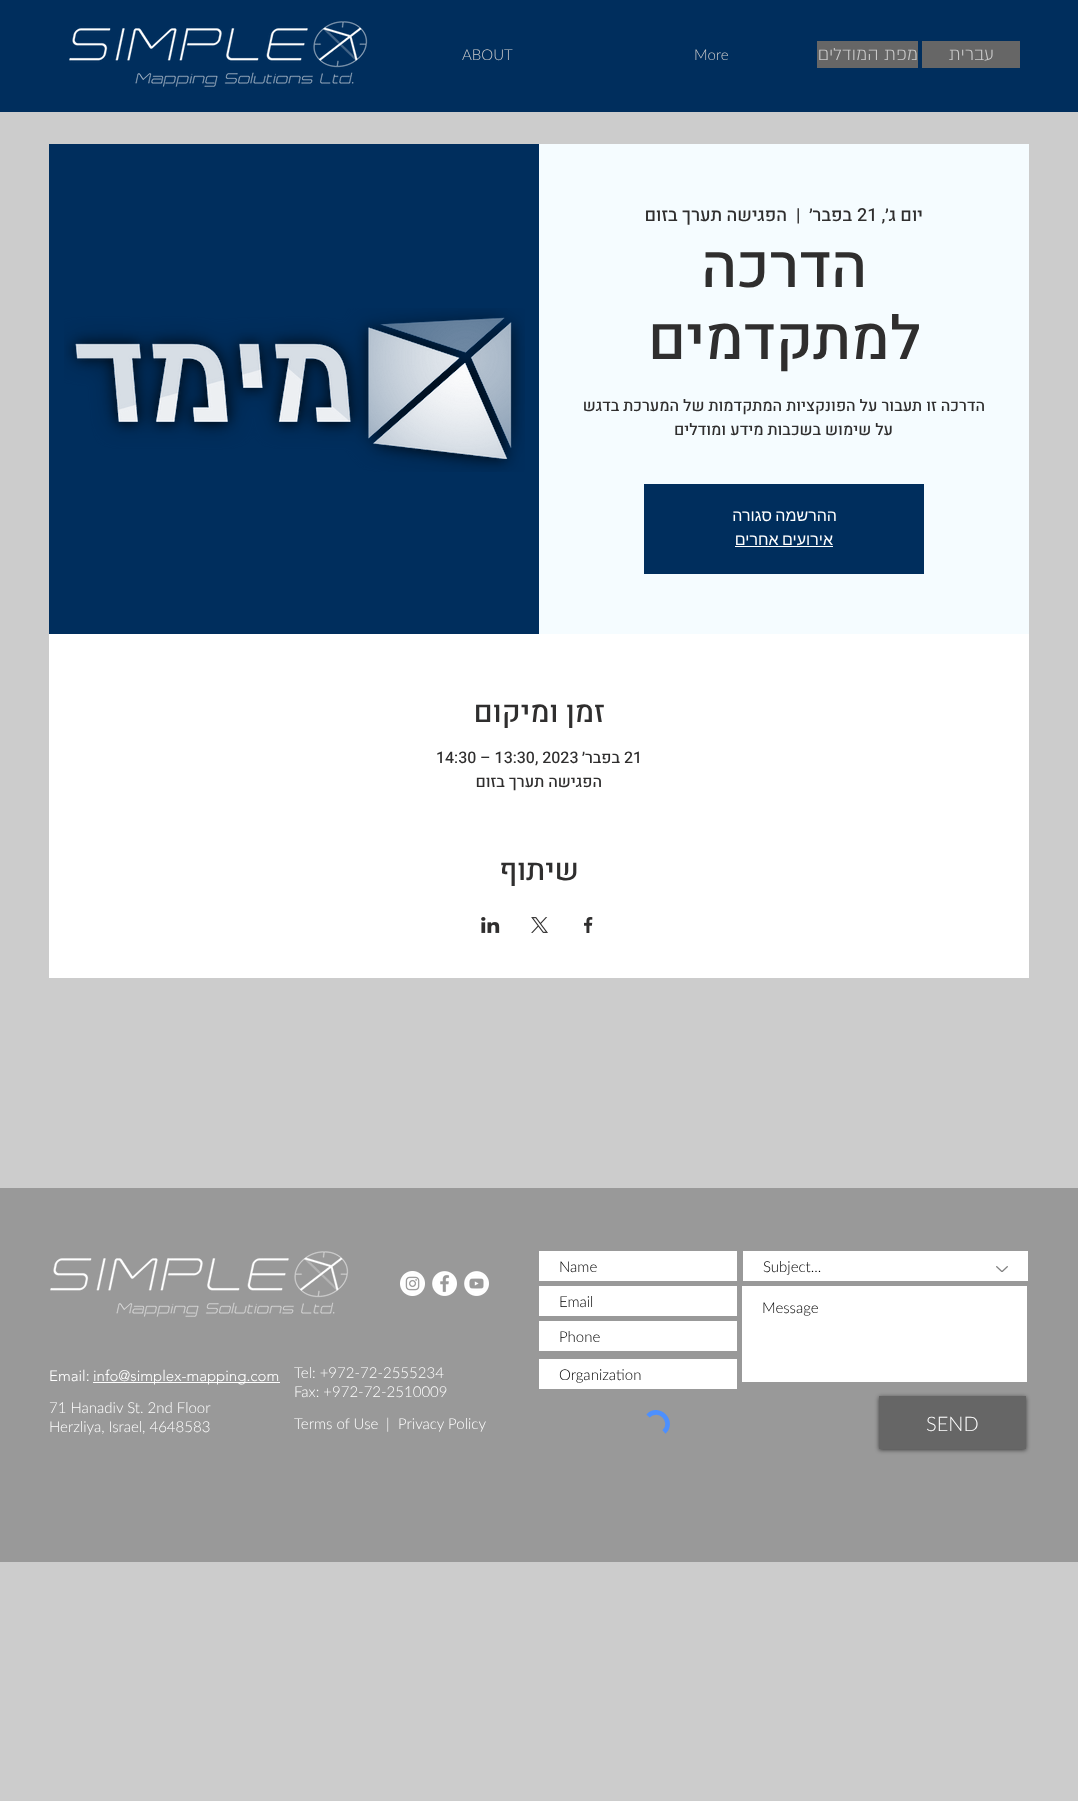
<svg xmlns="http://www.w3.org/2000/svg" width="1078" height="1801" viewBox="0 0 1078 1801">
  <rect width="100%" height="100%" fill="rgb(204,204,204)"/>
  <rect x="0" y="0" width="1078" height="112" fill="rgb(0,46,93)"/>
  <image x="69" y="21" width="299" height="66" href="pic1.png"/>
  <g font-family="Lato" font-size="15" font-weight="300" fill="rgb(204,204,204)">
    <text x="462" y="60">ABOUT</text>
    <text x="694" y="60">More</text>
  </g>
  <rect x="817" y="41" width="101" height="27" fill="rgb(102,102,102)"/>
  <text x="918" y="60" font-family="'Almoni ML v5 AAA'" font-size="20" font-weight="300" direction="rtl" fill="rgb(204,204,204)">מפת המודלים</text>
  <rect x="922" y="41" width="98" height="27" fill="rgb(102,102,102)"/>
  <text x="994" y="60" font-family="'Almoni ML v5 AAA'" font-size="20" font-weight="300" direction="rtl" fill="rgb(204,204,204)">עברית</text>
  <rect x="49" y="144" width="490" height="490" fill="rgb(0,46,93)"/>
  <image x="64" y="308" width="461" height="164" href="pic2.png"/>
  <rect x="539" y="144" width="490" height="490" fill="rgb(245,252,255)"/>
  <text x="787" y="221" font-family="Heebo" font-size="18" font-weight="500" direction="rtl" fill="rgb(47,46,46)">הפגישה תערך בזום</text>
  <text x="796" y="221" font-family="Heebo" font-size="18" font-weight="500" fill="rgb(47,46,46)">|</text>
  <text x="852" y="221" font-family="Heebo" font-size="18" font-weight="500" direction="rtl" fill="rgb(47,46,46)">בפבר׳</text>
  <text x="857" y="221" font-family="Heebo" font-size="18" font-weight="500" fill="rgb(47,46,46)">21</text>
  <text x="923" y="221" font-family="Heebo" font-size="18" font-weight="500" direction="rtl" fill="rgb(47,46,46)">יום ג׳,</text>
  <g font-family="Heebo" font-size="60" font-weight="500" direction="rtl" fill="rgb(47,46,46)">
    <text x="867" y="287">הדרכה</text>
    <text x="921" y="359">למתקדמים</text>
  </g>
  <g font-family="Heebo" font-size="16" font-weight="500" direction="rtl" fill="rgb(47,46,46)">
    <text x="985" y="411">הדרכה זו תעבור על הפונקציות המתקדמות של המערכת בדגש</text>
    <text x="893" y="435">על שימוש בשכבות מידע ומודלים</text>
  </g>
  <rect x="644" y="484" width="280" height="90" fill="rgb(0,46,93)"/>
  <g font-family="Liberation Sans" font-size="16" direction="rtl" fill="rgb(255,255,255)">
    <text x="837" y="521" word-spacing="-1">ההרשמה סגורה</text>
    <text x="833" y="545" word-spacing="-1">אירועים אחרים</text>
  </g>
  <rect x="735" y="546" width="98" height="1" fill="rgb(255,255,255)"/>
  <rect x="49" y="634" width="980" height="344" fill="rgb(255,255,255)"/>
  <text x="605" y="722" font-family="Heebo" font-size="30" font-weight="500" direction="rtl" fill="rgb(47,46,46)">זמן ומיקום</text>
  <text x="436" y="763" font-family="Heebo" font-size="16" font-weight="500" fill="rgb(47,46,46)">14:30 – 13:30, 2023</text>
  <text x="620" y="763" font-family="Heebo" font-size="16" font-weight="500" direction="rtl" fill="rgb(47,46,46)">בפבר׳</text>
  <text x="624" y="763" font-family="Heebo" font-size="16" font-weight="500" fill="rgb(47,46,46)">21</text>
  <text x="602" y="787" font-family="Heebo" font-size="16" font-weight="500" direction="rtl" fill="rgb(47,46,46)">הפגישה תערך בזום</text>
  <text x="579" y="880" font-family="Heebo" font-size="30" font-weight="500" direction="rtl" fill="rgb(47,46,46)">שיתוף</text>
  <image x="481" y="917" width="19" height="16" href="pic3.png"/>
  <image x="531" y="917" width="17" height="16" href="pic4.png"/>
  <image x="584" y="917" width="9" height="16" href="pic5.png"/>
  <rect x="0" y="1188" width="1078" height="374" fill="rgb(153,153,153)"/>
  <image x="50" y="1251" width="299" height="66" href="pic6.png"/>
  <image x="400" y="1271" width="25" height="25" href="pic7.png"/>
  <image x="432" y="1271" width="25" height="25" href="pic8.png"/>
  <image x="464" y="1271" width="25" height="25" href="pic9.png"/>
  <text x="49" y="1381" font-family="'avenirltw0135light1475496'" font-size="15" font-weight="300" fill="rgb(255,255,255)">Email:</text>
  <rect x="93" y="1382" width="187" height="1" fill="rgb(255,255,255)"/>
  <text x="93" y="1381" font-family="'avenirltw0135light1475496'" font-size="15" font-weight="300" fill="rgb(255,255,255)">info@simplex-mapping.com</text>
  <g font-family="Lato" font-size="15" font-weight="300" fill="rgb(255,255,255)">
    <text>
      <tspan x="49" y="1413">71 Hanadiv St. 2nd Floor</tspan>
      <tspan x="49" y="1432">Herzliya, Israel, 4648583</tspan>
    </text>
    <text>
      <tspan x="294" y="1378">Tel: +972-72-2555234</tspan>
      <tspan x="294" y="1397">Fax: +972-72-2510009</tspan>
    </text>
    <text x="294" y="1429">Terms of Use</text>
    <text x="386" y="1429">|</text>
    <text x="398" y="1429">Privacy Policy</text>
  </g>
  <rect x="539" y="1251" width="198" height="30" fill="rgb(255,255,255)"/>
  <text x="559" y="1272" font-family="'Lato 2'" font-size="15" font-weight="300" fill="rgb(0,0,0)">Name</text>
  <rect x="743" y="1251" width="285" height="30" fill="rgb(255,255,255)"/>
  <text x="763" y="1272" font-family="'Lato 2'" font-size="15" font-weight="300" fill="rgb(0,0,0)">Subject...</text>
  <image x="996" y="1266" width="12" height="6" href="pic10.png"/>
  <rect x="539" y="1286" width="198" height="30" fill="rgb(255,255,255)"/>
  <text x="559" y="1307" font-family="'Lato 2'" font-size="15" font-weight="300" fill="rgb(0,0,0)">Email</text>
  <rect x="742" y="1286" width="285" height="96" fill="rgb(255,255,255)"/>
  <text x="762" y="1313" font-family="'Lato 2'" font-size="15" font-weight="300" fill="rgb(0,0,0)">Message</text>
  <rect x="539" y="1321" width="198" height="30" fill="rgb(255,255,255)"/>
  <text x="559" y="1342" font-family="'Lato 2'" font-size="15" font-weight="300" fill="rgb(0,0,0)">Phone</text>
  <rect x="539" y="1359" width="198" height="30" fill="rgb(255,255,255)"/>
  <text x="559" y="1380" font-family="'Lato 2'" font-size="15" font-weight="300" fill="rgb(0,0,0)">Organization</text>
  <path d="M648 1416C658.5 1405 675 1421.5 664 1432" fill="none" stroke="rgb(77,144,254)" stroke-width="4.6"/>
  <rect x="879" y="1397" width="147" height="53" fill="rgba(0,0,0,0.6)" filter="blur(2px)"/>
  <rect x="879" y="1396" width="147" height="53" fill="rgb(102,102,102)"/>
  <text x="926" y="1431" font-family="Lato" font-size="20" font-weight="300" fill="rgb(255,255,255)">SEND</text>
</svg>
